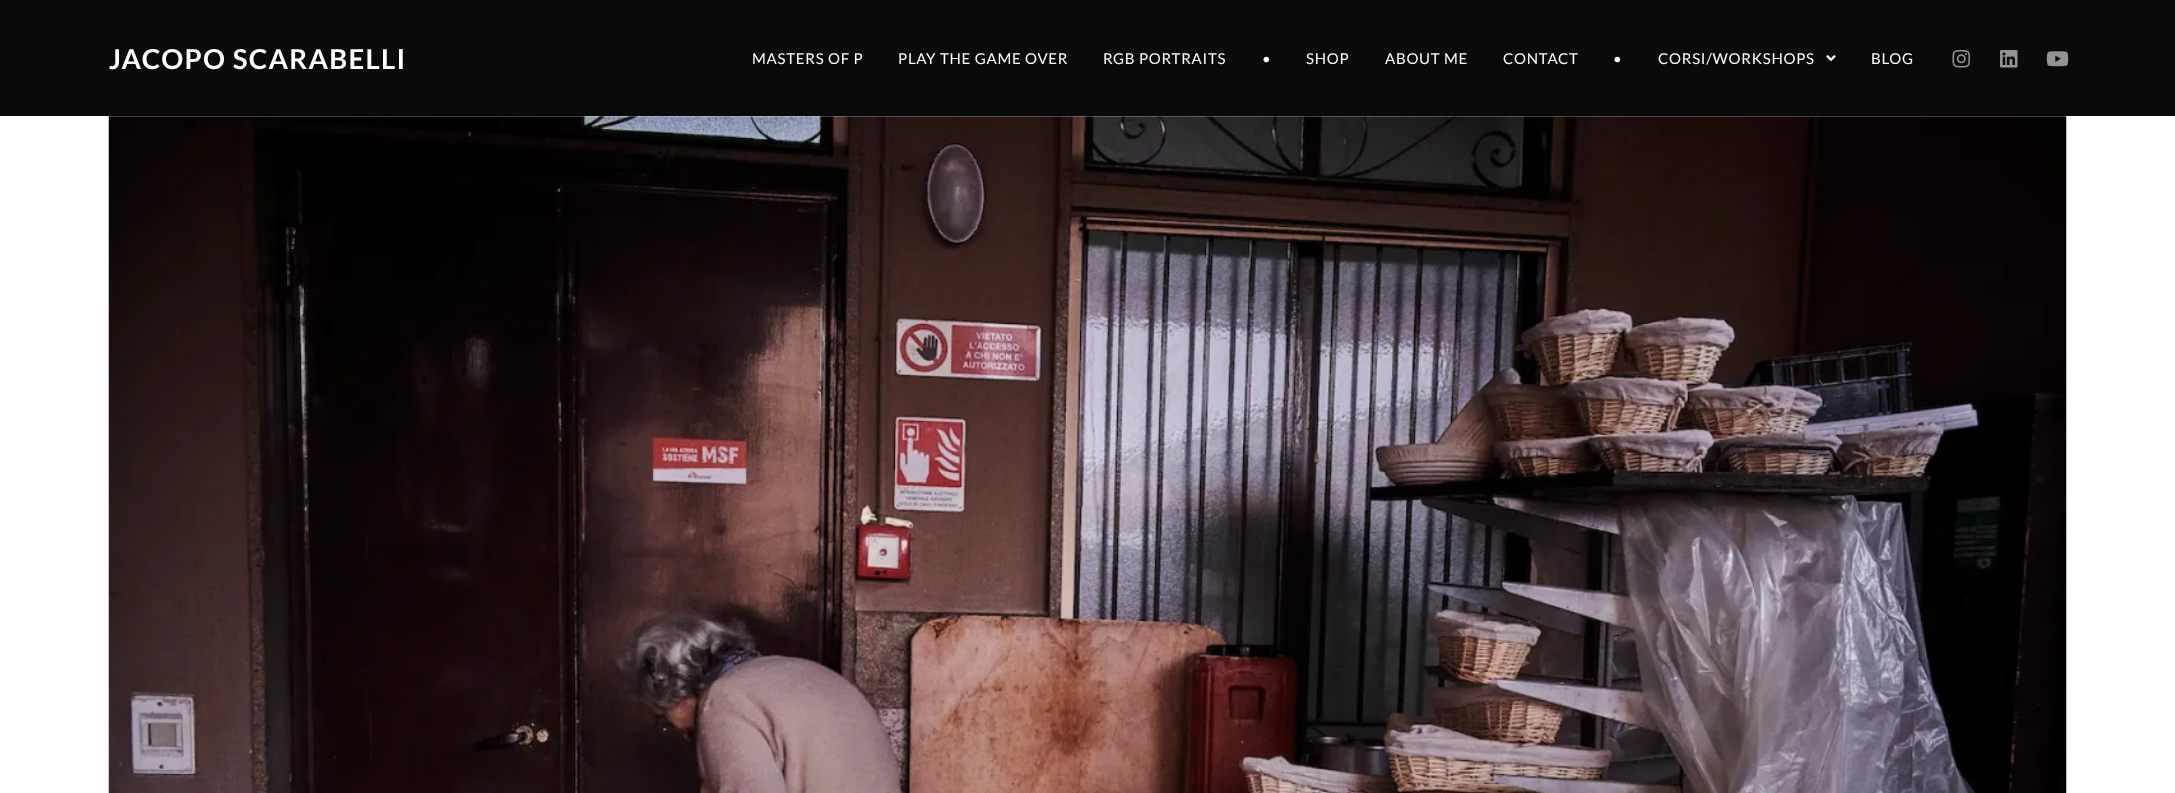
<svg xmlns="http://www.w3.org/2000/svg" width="2175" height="793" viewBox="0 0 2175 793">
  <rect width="100%" height="100%" fill="rgb(255,255,255)"/>
  <rect x="0" y="0" width="2175" height="116" fill="rgb(10,10,10)"/>
  <text x="109" y="69" font-family="Lato" font-size="27.5" font-weight="bold" letter-spacing="1.25" fill="rgb(255,255,255)">JACOPO SCARABELLI</text>
  <g font-family="Lato" font-size="15" letter-spacing="0.75" fill="rgb(255,255,255)">
    <text x="752" y="64">MASTERS OF P</text>
    <text x="898" y="64">PLAY THE GAME OVER</text>
    <text x="1103" y="64">RGB PORTRAITS</text>
    <text x="1262" y="64">•</text>
    <text x="1306" y="64">SHOP</text>
    <text x="1385" y="64">ABOUT ME</text>
    <text x="1503" y="64">CONTACT</text>
    <text x="1613" y="64">•</text>
    <text x="1658" y="64">CORSI/WORKSHOPS</text>
  </g>
  <image x="1826" y="55" width="10" height="7" href="pic1.png"/>
  <text x="1871" y="64" font-family="Lato" font-size="15" letter-spacing="0.75" fill="rgb(255,255,255)">BLOG</text>
  <image x="1952" y="49" width="19" height="19" href="pic2.png"/>
  <image x="2000" y="50" width="18" height="18" href="pic3.png"/>
  <image x="2046" y="51" width="23" height="16" href="pic4.png"/>
  <image x="108" y="116" width="1959" height="677" href="pic5.png"/>
</svg>
